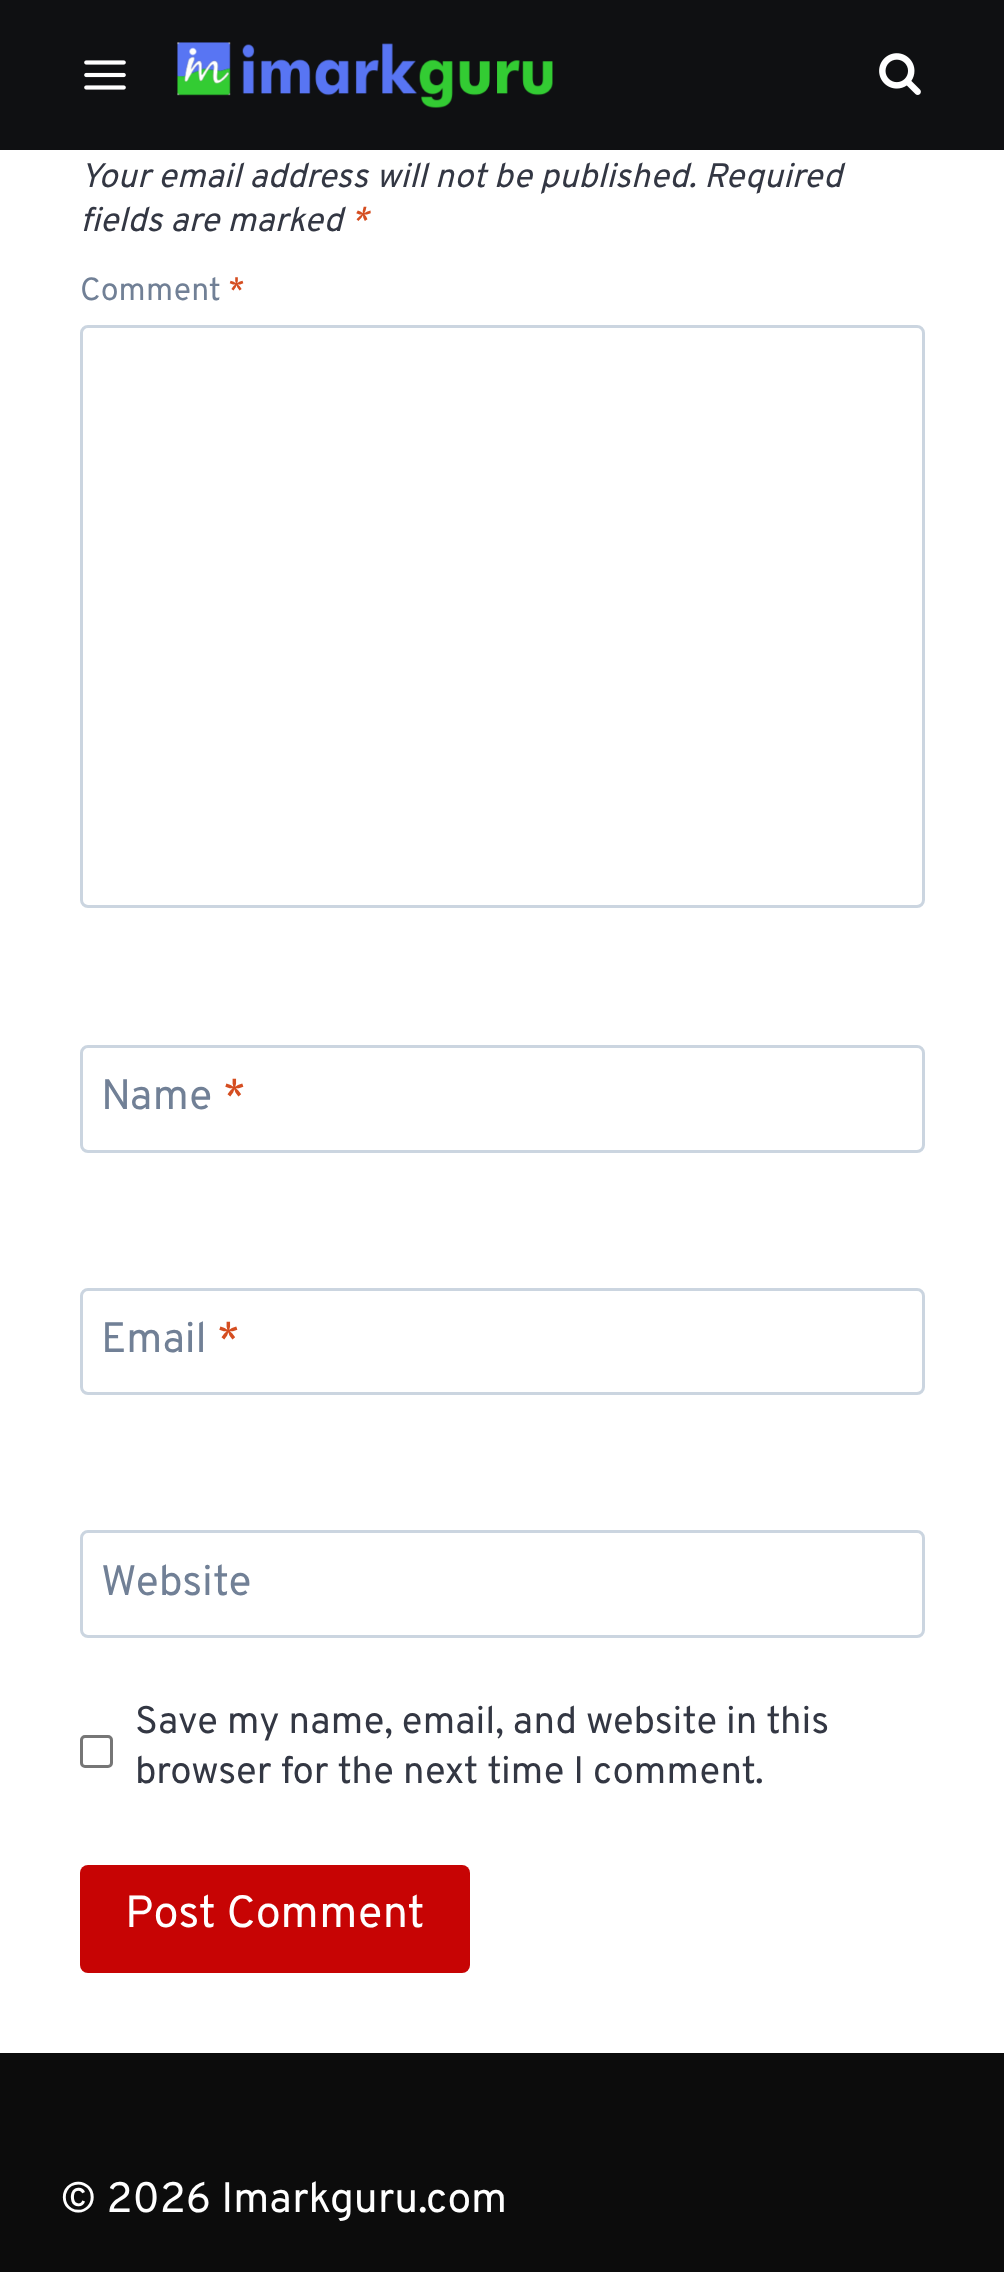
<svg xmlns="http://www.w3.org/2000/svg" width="1004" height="2272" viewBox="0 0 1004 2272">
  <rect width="100%" height="100%" fill="rgb(255,255,255)"/>
  <rect x="0" y="0" width="1004" height="150" fill="rgb(15,16,18)"/>
  <image x="84" y="60" width="42" height="30" href="pic1.png"/>
  <image x="177" y="42" width="376" height="66" href="pic2.png"/>
  <image x="879" y="53" width="42" height="42" href="pic3.png"/>
  <g font-family="Overpass" font-size="34" font-style="italic" fill="rgb(51,55,67)">
    <text>
      <tspan x="80" y="187">Your email address will not be published. Required</tspan>
      <tspan x="80" y="231">fields are marked</tspan>
    </text>
  </g>
  <text x="350" y="231" font-family="Overpass" font-size="34" font-style="italic" fill="rgb(213,78,33)">*</text>
  <text x="80" y="300" font-family="Overpass" font-size="32" fill="rgb(113,128,150)">Comment</text>
  <text x="228" y="300" font-family="Overpass" font-size="32" fill="rgb(213,78,33)">*</text>
  <rect x="81.5" y="326.5" width="842" height="580" rx="6.5" fill="none" stroke="rgb(203,213,224)" stroke-width="3"/>
  <rect x="81.5" y="1046.5" width="842" height="105" rx="6.5" fill="none" stroke="rgb(203,213,224)" stroke-width="3"/>
  <text x="101" y="1109" font-family="Overpass" font-size="42.5" fill="rgb(113,128,150)">Name</text>
  <text x="223" y="1109" font-family="Overpass" font-size="42.5" fill="rgb(213,78,33)">*</text>
  <rect x="81.5" y="1289.5" width="842" height="104" rx="6.5" fill="none" stroke="rgb(203,213,224)" stroke-width="3"/>
  <text x="101" y="1352" font-family="Overpass" font-size="42.5" fill="rgb(113,128,150)">Email</text>
  <text x="217" y="1352" font-family="Overpass" font-size="42.5" fill="rgb(213,78,33)">*</text>
  <rect x="81.5" y="1531.5" width="842" height="105" rx="6.5" fill="none" stroke="rgb(203,213,224)" stroke-width="3"/>
  <text x="101" y="1595" font-family="Overpass" font-size="42.5" fill="rgb(113,128,150)">Website</text>
  <rect x="81.5" y="1736.5" width="30" height="30" rx="3.5" fill="none" stroke="rgb(118,118,118)" stroke-width="3"/>
  <g font-family="Overpass" font-size="38.25" fill="rgb(51,55,67)">
    <text>
      <tspan x="135" y="1733">Save my name, email, and website in this</tspan>
      <tspan x="135" y="1783">browser for the next time I comment.</tspan>
    </text>
  </g>
  <rect x="80" y="1865" width="390" height="108" rx="8" fill="rgb(199,4,4)"/>
  <text x="125" y="1927" font-family="Overpass" font-size="45" fill="rgb(255,255,255)">Post Comment</text>
  <rect x="0" y="2053" width="1004" height="219" fill="rgb(12,12,12)"/>
  <text x="60" y="2212" font-family="Overpass" font-size="42.5" fill="rgb(255,255,255)">© 2026 Imarkguru.com</text>
</svg>
